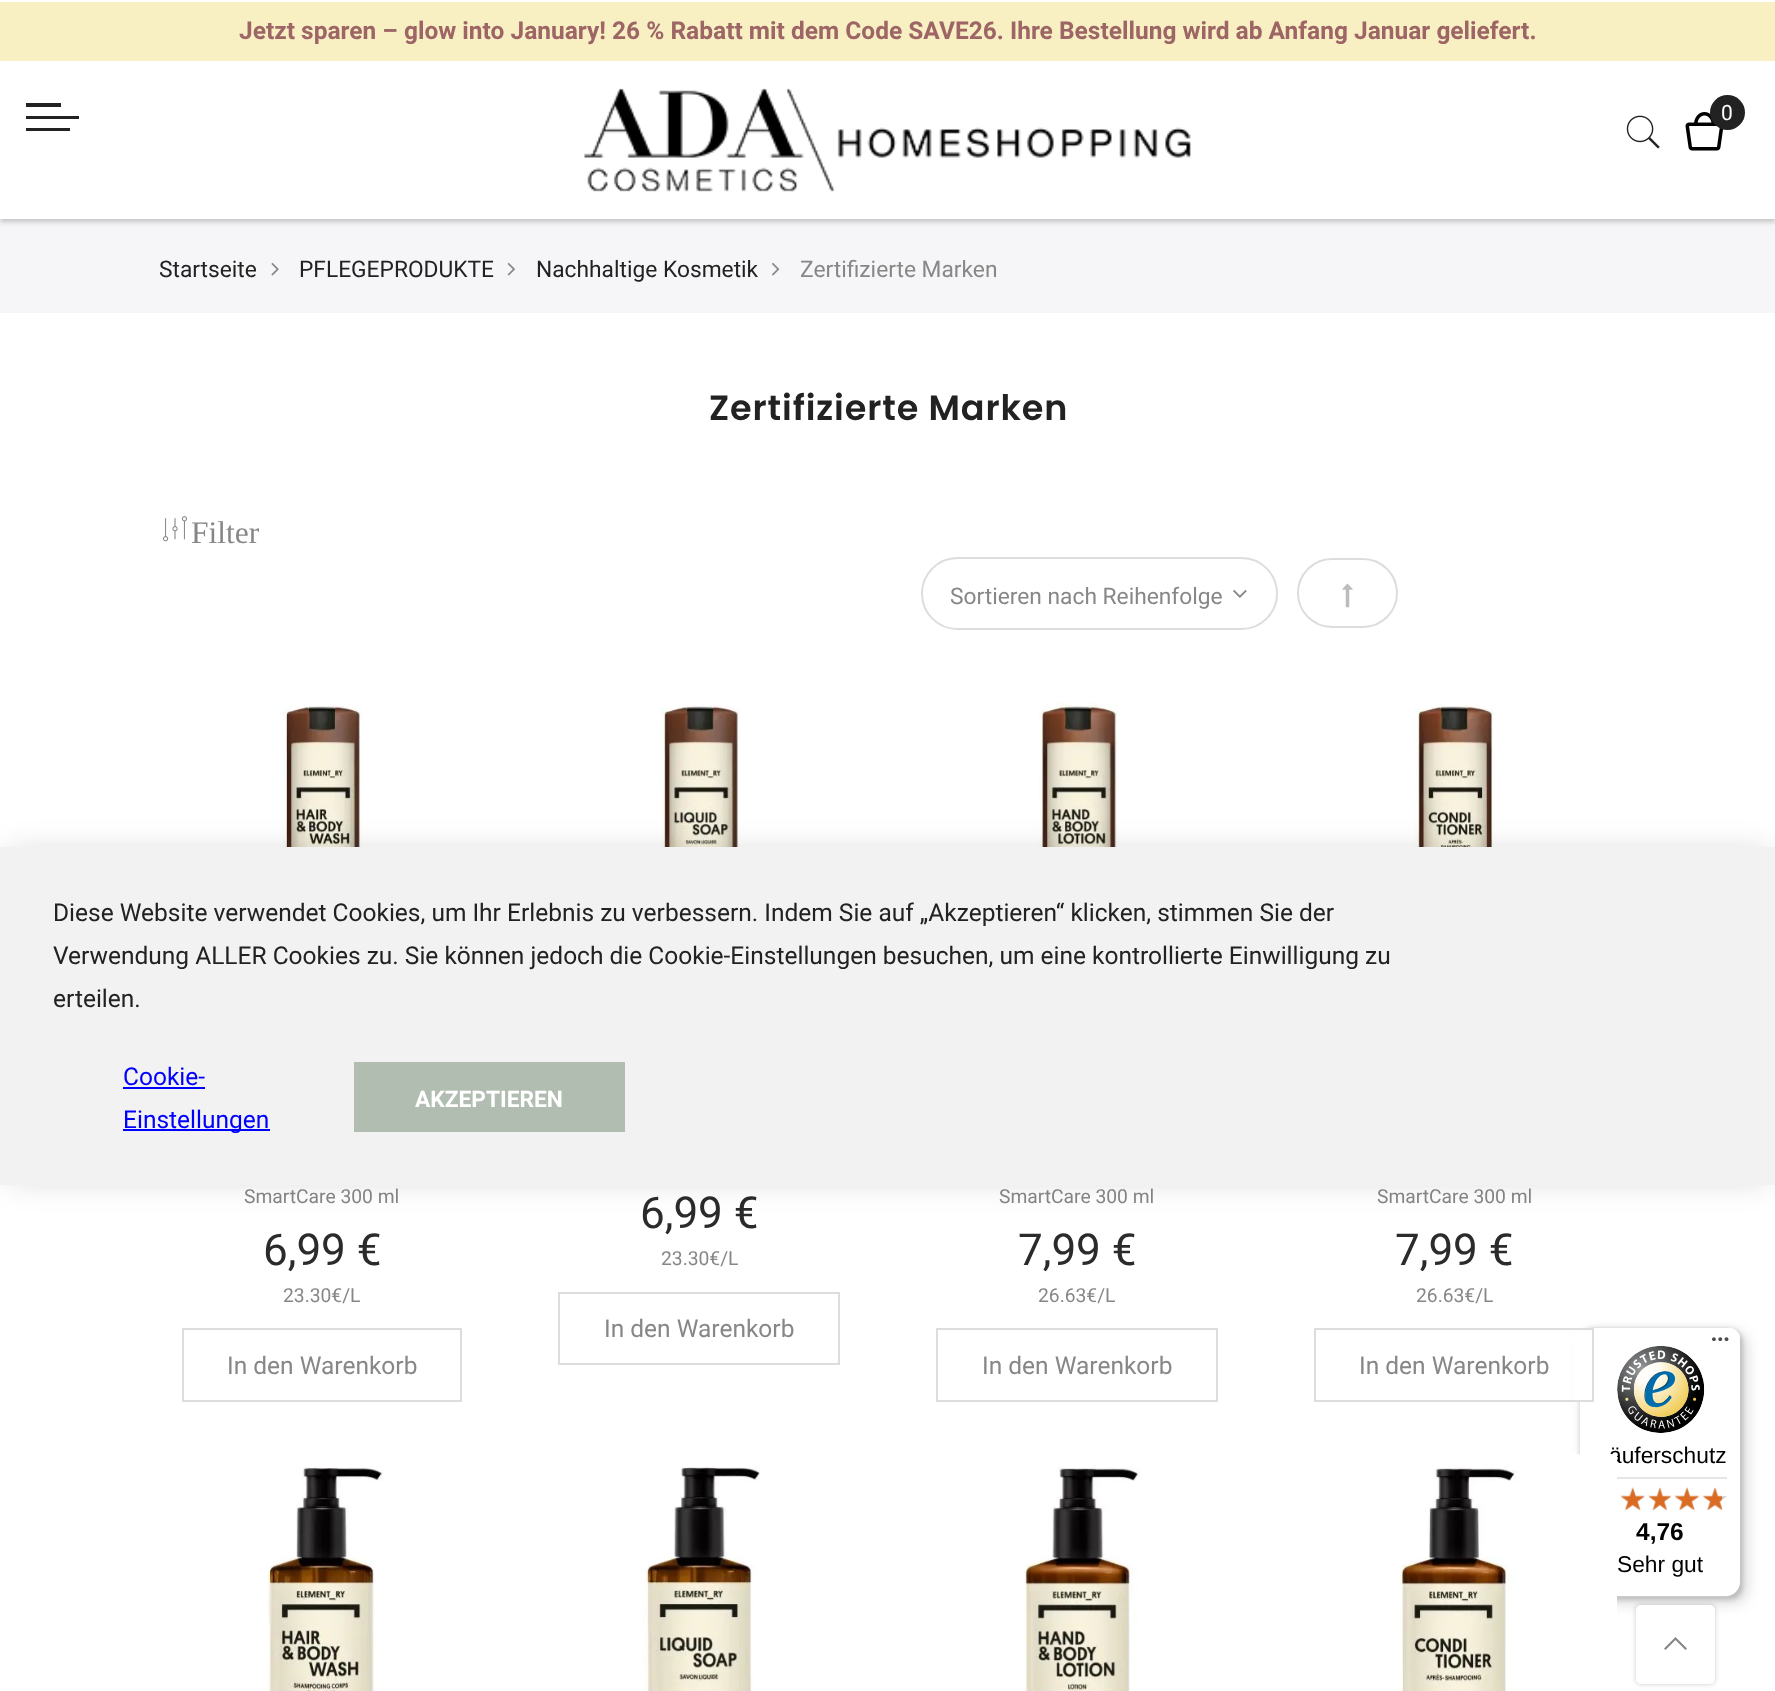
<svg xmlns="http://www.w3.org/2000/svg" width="1775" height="1691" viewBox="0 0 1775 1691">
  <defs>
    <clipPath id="clip1"><path d="M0 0H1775V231H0ZM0 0H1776V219H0Z" clip-rule="evenodd"/></clipPath>
  </defs>
  <rect width="100%" height="100%" fill="rgb(255,255,255)"/>
  <rect x="0" y="219" width="1775" height="94" fill="rgb(246,246,248)"/>
  <g clip-path="url(#clip1)">
    <rect x="0" y="4" width="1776" height="218" fill="rgba(0,0,0,0.2)" filter="blur(2.5px)"/>
  </g>
  <rect x="0" y="218" width="1775" height="1" fill="rgba(255,255,255,0.89)"/>
  <rect x="0" y="2" width="1775" height="59" fill="rgb(248,239,194)"/>
  <text x="239" y="39" font-family="Roboto" font-size="24.5" font-weight="bold" fill="rgb(157,101,101)">Jetzt sparen – glow into January! 26 % Rabatt mit dem Code SAVE26. Ihre Bestellung wird ab Anfang Januar geliefert.</text>
  <rect x="26" y="103" width="35" height="4" fill="rgb(34,34,34)"/>
  <rect x="26" y="116" width="53" height="3" fill="rgb(34,34,34)"/>
  <rect x="26" y="128" width="44" height="3" fill="rgb(34,34,34)"/>
  <image x="584" y="88" width="607" height="104" href="pic1.png"/>
  <image x="1685" y="112" width="39" height="39" href="pic2.png"/>
  <circle cx="1727.5" cy="112.5" r="17.5" fill="rgb(34,34,34)"/>
  <text x="1721" y="120" font-family="Roboto" font-size="21" fill="rgb(255,255,255)">0</text>
  <image x="1626" y="115" width="34" height="34" href="pic3.png"/>
  <text x="159" y="277" font-family="Roboto" font-size="22.75" fill="rgb(34,34,34)">Startseite</text>
  <image x="271" y="262" width="8" height="14" href="pic4.png"/>
  <text x="299" y="277" font-family="Roboto" font-size="22.75" fill="rgb(34,34,34)">PFLEGEPRODUKTE</text>
  <image x="507" y="262" width="8" height="14" href="pic5.png"/>
  <text x="536" y="277" font-family="Roboto" font-size="22.75" fill="rgb(34,34,34)">Nachhaltige Kosmetik</text>
  <image x="772" y="263" width="8" height="13" href="pic6.png"/>
  <text x="800" y="277" font-family="Roboto" font-size="22.75" fill="rgb(135,135,135)">Zertifizierte Marken</text>
  <text x="709" y="420" font-family="Poppins" font-size="35" font-weight="600" letter-spacing="0.9" fill="rgb(34,34,34)">Zertifizierte Marken</text>
  <image x="163" y="516" width="24" height="26" href="pic7.png"/>
  <text x="191" y="543" font-family="Liberation Serif" font-size="31.5" fill="rgb(135,135,135)">Filter</text>
  <rect x="922" y="558" width="355" height="71" rx="35.5" fill="none" stroke="rgb(221,221,221)" stroke-width="2"/>
  <text x="950" y="604" font-family="Roboto" font-size="22.75" fill="rgb(135,135,135)">Sortieren nach Reihenfolge</text>
  <image x="1233" y="590" width="14" height="8" href="pic8.png"/>
  <rect x="1298" y="559" width="99" height="68" rx="34" fill="none" stroke="rgb(221,221,221)" stroke-width="2"/>
  <image x="1342" y="583" width="11" height="25" href="pic9.png"/>
  <image x="283" y="705" width="84" height="142" href="pic10.png"/>
  <text x="244" y="1203" font-family="Roboto" font-size="19.25" fill="rgb(135,135,135)">SmartCare 300 ml</text>
  <text x="263" y="1265" font-family="Roboto" font-size="44" fill="rgb(43,43,43)">6,99 €</text>
  <text x="283" y="1302" font-family="Roboto" font-size="19.25" fill="rgb(135,135,135)">23.30€/L</text>
  <rect x="183" y="1329" width="278" height="72" fill="none" stroke="rgb(221,221,221)" stroke-width="2"/>
  <text x="227" y="1374" font-family="Roboto" font-size="24.5" fill="rgb(135,135,135)">In den Warenkorb</text>
  <image x="661" y="705" width="79" height="142" href="pic11.png"/>
  <text x="640" y="1228" font-family="Roboto" font-size="44" fill="rgb(43,43,43)">6,99 €</text>
  <text x="661" y="1265" font-family="Roboto" font-size="19.25" fill="rgb(135,135,135)">23.30€/L</text>
  <rect x="559" y="1293" width="280" height="71" fill="none" stroke="rgb(221,221,221)" stroke-width="2"/>
  <text x="604" y="1337" font-family="Roboto" font-size="24.5" fill="rgb(135,135,135)">In den Warenkorb</text>
  <image x="1039" y="702" width="80" height="145" href="pic12.png"/>
  <text x="999" y="1203" font-family="Roboto" font-size="19.25" fill="rgb(135,135,135)">SmartCare 300 ml</text>
  <text x="1018" y="1265" font-family="Roboto" font-size="44" fill="rgb(43,43,43)">7,99 €</text>
  <text x="1038" y="1302" font-family="Roboto" font-size="19.25" fill="rgb(135,135,135)">26.63€/L</text>
  <rect x="937" y="1329" width="280" height="72" fill="none" stroke="rgb(221,221,221)" stroke-width="2"/>
  <text x="982" y="1374" font-family="Roboto" font-size="24.5" fill="rgb(135,135,135)">In den Warenkorb</text>
  <image x="1414" y="702" width="80" height="145" href="pic13.png"/>
  <text x="1377" y="1203" font-family="Roboto" font-size="19.25" fill="rgb(135,135,135)">SmartCare 300 ml</text>
  <text x="1395" y="1265" font-family="Roboto" font-size="44" fill="rgb(43,43,43)">7,99 €</text>
  <text x="1416" y="1302" font-family="Roboto" font-size="19.25" fill="rgb(135,135,135)">26.63€/L</text>
  <rect x="1584" y="1332" width="163" height="271" rx="14" fill="rgba(0,0,0,0.15)" filter="blur(7px)"/>
  <rect x="1580" y="1328" width="163" height="272" rx="14" fill="rgba(0,0,0,0.15)" filter="blur(2px)"/>
  <rect x="1579" y="1327" width="162" height="271" rx="14" fill="rgb(255,255,255)"/>
  <path d="M1594 1328H1729C1731 1328 1733 1328 1734 1329C1732 1328 1730 1327 1727 1327H1593C1585 1327 1579 1333 1579 1341V1584C1579 1587 1580 1590 1582 1593C1581 1591 1580 1588 1580 1586V1342C1580 1335 1587 1328 1594 1328Z" fill="rgb(229,229,229)"/>
  <path d="M1583 1593C1585 1596 1589 1598 1593 1598H1727C1735 1598 1741 1592 1741 1584V1341C1741 1338 1740 1336 1739 1334C1740 1335 1740 1337 1740 1339V1582C1740 1590 1733 1596 1726 1596H1591C1588 1596 1585 1595 1583 1593Z" fill="rgba(0,0,0,0.2)"/>
  <path d="M1584 1595C1587 1597 1590 1598 1593 1598H1727C1735 1598 1741 1592 1741 1584V1341C1741 1338 1740 1335 1739 1333C1740 1335 1740 1337 1740 1339V1583C1740 1590 1734 1597 1726 1597H1591C1589 1597 1586 1596 1584 1595Z" fill="rgba(50,50,50,0.2)"/>
  <path d="M1584 1594C1586 1597 1589 1598 1593 1598H1727C1735 1598 1741 1592 1741 1584V1341C1741 1337 1740 1334 1737 1332C1739 1334 1740 1337 1740 1340V1583C1740 1591 1734 1597 1726 1597H1592C1589 1597 1586 1596 1584 1594Z" fill="rgba(255,255,255,0.3)"/>
  <rect x="1574" y="1330" width="13" height="70" fill="rgb(255,255,255)"/>
  <rect x="1315" y="1329" width="278" height="72" fill="none" stroke="rgb(221,221,221)" stroke-width="2"/>
  <text x="1359" y="1374" font-family="Roboto" font-size="24.5" fill="rgb(135,135,135)">In den Warenkorb</text>
  <image x="267" y="1467" width="117" height="224" href="pic14.png"/>
  <image x="643" y="1467" width="118" height="224" href="pic15.png"/>
  <image x="1023" y="1467" width="117" height="224" href="pic16.png"/>
  <text x="1609" y="1463" font-family="Liberation Sans" font-size="22.75" fill="rgb(0,0,0)">äuferschutz</text>
  <image x="1399" y="1454" width="218" height="237" href="pic17.png"/>
  <rect x="9" y="856" width="1759" height="320" fill="rgba(0,0,0,0.2)" filter="blur(17.5px)"/>
  <rect x="0" y="847" width="1775" height="338" fill="rgb(242,242,242)"/>
  <g font-family="Roboto" font-size="24.5" fill="rgb(34,34,34)">
    <text>
      <tspan x="53" y="921">Diese Website verwendet Cookies, um Ihr Erlebnis zu verbessern. Indem Sie auf „Akzeptieren“ klicken, stimmen Sie der</tspan>
      <tspan x="53" y="964">Verwendung ALLER Cookies zu. Sie können jedoch die Cookie-Einstellungen besuchen, um eine kontrollierte Einwilligung zu</tspan>
      <tspan x="53" y="1007">erteilen.</tspan>
    </text>
  </g>
  <text x="123" y="1085" font-family="Roboto" font-size="24.5" fill="rgb(0,0,255)">Cookie-</text>
  <rect x="123" y="1087" width="82" height="2" fill="rgb(0,0,255)"/>
  <rect x="123" y="1129" width="147" height="2" fill="rgb(0,0,255)"/>
  <text x="123" y="1128" font-family="Roboto" font-size="24.5" fill="rgb(0,0,255)">Einstellungen</text>
  <rect x="354" y="1062" width="271" height="70" fill="rgb(176,189,176)"/>
  <text x="415" y="1107" font-family="Roboto" font-size="22.75" font-weight="bold" fill="rgb(255,255,255)">AKZEPTIEREN</text>
  <rect x="1636" y="1605" width="79" height="79" rx="5" fill="rgba(0,0,0,0.2)" filter="blur(2.5px)"/>
  <rect x="1636" y="1605" width="79" height="79" rx="5" fill="rgb(255,255,255)"/>
  <path d="M1677 1638.5L1675.5 1637L1664 1648.5L1665.5 1650L1675.5 1640L1685.5 1650L1687 1648.5Z" fill="rgb(135,135,135)"/>
  <image x="1712" y="1337" width="17" height="4" href="pic18.png"/>
  <image x="1617" y="1346" width="88" height="87" href="pic19.png"/>
  <rect x="1617" y="1477" width="110" height="2" fill="rgb(229,229,229)"/>
  <image x="1621" y="1487" width="24" height="23" href="pic24.png"/>
  <image x="1620" y="1487" width="25" height="24" href="pic20.png"/>
  <image x="1649" y="1488" width="22" height="22" href="pic25.png"/>
  <image x="1648" y="1487" width="24" height="24" href="pic21.png"/>
  <image x="1675" y="1488" width="24" height="22" href="pic26.png"/>
  <image x="1674" y="1487" width="25" height="24" href="pic22.png"/>
  <image x="1703" y="1488" width="24" height="22" href="pic27.png"/>
  <image x="1702" y="1487" width="20" height="24" href="pic23.png"/>
  <text x="1636" y="1540" font-family="Liberation Sans" font-size="24.5" font-weight="bold" fill="rgb(0,0,0)">4,76</text>
  <text x="1617" y="1572" font-family="Liberation Sans" font-size="22.75" fill="rgb(0,0,0)">Sehr gut</text>
</svg>
